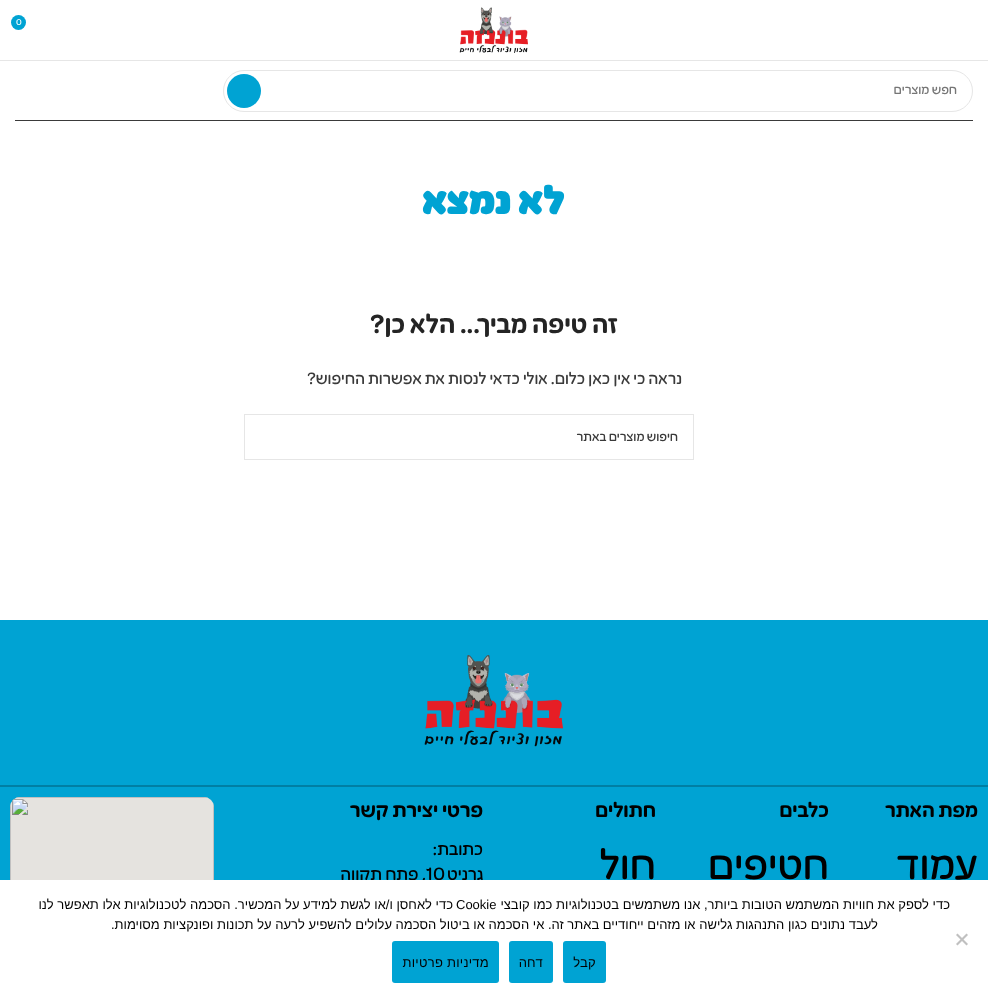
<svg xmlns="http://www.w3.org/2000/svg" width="988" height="998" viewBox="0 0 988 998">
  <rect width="100%" height="100%" fill="rgb(255,255,255)"/>
  <rect x="0" y="60" width="988" height="1" fill="rgb(230,230,230)"/>
  <image x="459" y="7" width="69" height="46" href="pic1.png"/>
  <circle cx="18.5" cy="22.5" r="7.5" fill="rgb(0,163,211)"/>
  <text x="16" y="25" font-family="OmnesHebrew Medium" font-size="9" font-weight="500" fill="rgb(255,255,255)">0</text>
  <rect x="15" y="120" width="958" height="1" fill="rgb(58,58,58)"/>
  <rect x="223.5" y="70.5" width="749" height="41" rx="20.5" fill="none" stroke="rgb(230,230,230)"/>
  <text x="957" y="94" font-family="OmnesHebrew Medium" font-size="14" font-weight="500" direction="rtl" fill="rgb(118,118,118)">חפש מוצרים</text>
  <circle cx="244" cy="91" r="17" fill="rgb(0,163,211)"/>
  <text x="565" y="214" font-family="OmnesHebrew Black" font-size="41.5" font-weight="900" direction="rtl" fill="rgb(0,163,211)">לא נמצא</text>
  <text x="618" y="333" font-family="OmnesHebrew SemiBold" font-size="28" font-weight="600" direction="rtl" fill="rgb(36,36,36)">זה טיפה מביך... הלא כן?</text>
  <text x="682" y="384" font-family="OmnesHebrew Medium" font-size="17.6" font-weight="500" direction="rtl" fill="rgb(58,58,58)">נראה כי אין כאן כלום. אולי כדאי לנסות את אפשרות החיפוש?</text>
  <rect x="244.5" y="414.5" width="449" height="45" fill="none" stroke="rgb(230,230,230)"/>
  <text x="678" y="441" font-family="OmnesHebrew Medium" font-size="14" font-weight="500" direction="rtl" fill="rgb(58,58,58)">חיפוש מוצרים באתר</text>
  <rect x="0" y="620" width="988" height="260" fill="rgb(0,163,211)"/>
  <image x="424" y="655" width="139" height="92" href="pic2.png"/>
  <rect x="0" y="785" width="988" height="2" fill="rgb(0,127,164)"/>
  <text x="978" y="817" font-family="OmnesHebrew SemiBold" font-size="22" font-weight="600" direction="rtl" fill="rgb(0,0,0)">מפת האתר</text>
  <text x="978" y="879" font-family="OmnesHebrew Medium" font-size="45" font-weight="500" direction="rtl" fill="rgb(0,0,0)">עמוד</text>
  <text x="829" y="817" font-family="OmnesHebrew SemiBold" font-size="22" font-weight="600" direction="rtl" fill="rgb(0,0,0)">כלבים</text>
  <text x="829" y="879" font-family="OmnesHebrew Medium" font-size="45" font-weight="500" direction="rtl" fill="rgb(0,0,0)">חטיפים</text>
  <text x="656" y="817" font-family="OmnesHebrew SemiBold" font-size="22" font-weight="600" direction="rtl" fill="rgb(0,0,0)">חתולים</text>
  <text x="656" y="879" font-family="OmnesHebrew Medium" font-size="45" font-weight="500" direction="rtl" fill="rgb(0,0,0)">חול</text>
  <text x="483" y="817" font-family="OmnesHebrew SemiBold" font-size="22" font-weight="600" direction="rtl" fill="rgb(0,0,0)">פרטי יצירת קשר</text>
  <g font-family="OmnesHebrew Medium" font-size="19" font-weight="500" direction="rtl" fill="rgb(0,0,0)">
    <text>
      <tspan x="483" y="855">כתובת:</tspan>
      <tspan x="483" y="880">גרניט</tspan>
    </text>
  </g>
  <text x="426" y="880" font-family="OmnesHebrew Medium" font-size="19" font-weight="500" fill="rgb(0,0,0)">10</text>
  <text x="426" y="880" font-family="OmnesHebrew Medium" font-size="19" font-weight="500" direction="rtl" fill="rgb(0,0,0)">, פתח תקווה</text>
  <image x="10" y="797" width="204" height="83" href="pic3.png"/>
  <rect x="342" y="880" width="140" height="3" fill="rgb(255,255,255)"/>
  <text x="950" y="909" font-family="Liberation Sans" font-size="13" direction="rtl" fill="rgb(0,0,0)">כדי לספק את חוויות המשתמש הטובות ביותר, אנו משתמשים בטכנולוגיות כמו קובצי</text>
  <text x="456" y="909" font-family="Liberation Sans" font-size="13" fill="rgb(0,0,0)">Cookie</text>
  <g font-family="Liberation Sans" font-size="13" direction="rtl" fill="rgb(0,0,0)">
    <text x="453" y="909">כדי לאחסן ו/או לגשת למידע על המכשיר. הסכמה לטכנולוגיות אלו תאפשר לנו</text>
    <text x="878" y="929">לעבד נתונים כגון התנהגות גלישה או מזהים ייחודיים באתר זה. אי הסכמה או ביטול הסכמה עלולים להשפיע לרעה על תכונות ופונקציות מסוימות.</text>
  </g>
  <path d="M966.5 933.5L968 935L957.5 945.5L956 944Z" fill="rgb(192,192,192)"/>
  <path d="M956 935L957.5 933.5L968 944L966.5 945.5Z" fill="rgb(192,192,192)"/>
  <rect x="563" y="941" width="43" height="42" rx="3" fill="rgb(0,163,211)"/>
  <text x="596" y="967" font-family="Liberation Sans" font-size="13" letter-spacing="0.25" direction="rtl" fill="rgb(0,0,0)">קבל</text>
  <rect x="509" y="941" width="44" height="42" rx="3" fill="rgb(0,163,211)"/>
  <text x="543" y="967" font-family="Liberation Sans" font-size="13" letter-spacing="0.25" direction="rtl" fill="rgb(0,0,0)">דחה</text>
  <rect x="392" y="941" width="107" height="42" rx="3" fill="rgb(0,163,211)"/>
  <text x="489" y="967" font-family="Liberation Sans" font-size="13" letter-spacing="0.25" direction="rtl" fill="rgb(0,0,0)">מדיניות פרטיות</text>
</svg>
